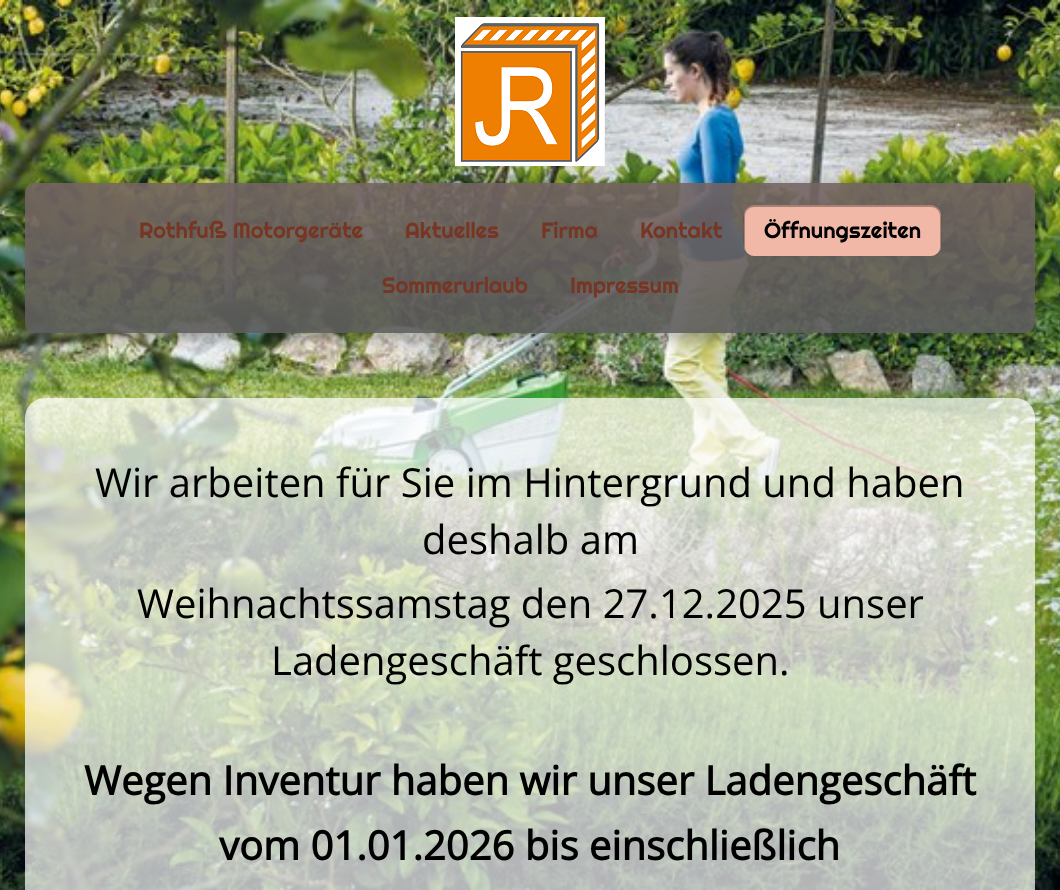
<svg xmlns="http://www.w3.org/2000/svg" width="1060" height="890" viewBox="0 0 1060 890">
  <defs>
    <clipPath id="clip1"><path d="M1 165H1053V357H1ZM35 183H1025C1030.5 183 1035 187.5 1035 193V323C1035 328.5 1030.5 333 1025 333H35C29.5 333 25 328.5 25 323V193C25 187.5 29.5 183 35 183Z" clip-rule="evenodd"/></clipPath>
    <linearGradient id="g1" gradientUnits="userSpaceOnUse" x1="530" y1="333" x2="530" y2="183"><stop offset="0" stop-color="rgb(92,92,92)" stop-opacity="0.9"/><stop offset="1" stop-color="rgb(115,99,98)" stop-opacity="0.9"/></linearGradient>
  </defs>
  <rect width="100%" height="100%" fill="rgb(255,255,255)"/>
  <image x="0" y="0" width="1060" height="890" href="pic1.png"/>
  <image x="455" y="17" width="150" height="149" href="pic2.png"/>
  <g clip-path="url(#clip1)">
    <rect x="17" y="181" width="1020" height="160" rx="15" fill="rgba(0,0,0,0.2)" filter="blur(5px)"/>
  </g>
  <rect x="25" y="183" width="1010" height="150" rx="10" fill="url(#g1)"/>
  <g font-family="Righteous" font-size="22" fill="rgb(118,54,35)">
    <text x="139" y="238">Rothfuß Motorgeräte</text>
    <text x="405" y="238">Aktuelles</text>
    <text x="541" y="238">Firma</text>
    <text x="640" y="238">Kontakt</text>
  </g>
  <rect x="744" y="205" width="197" height="51" rx="10" fill="rgb(241,184,167)"/>
  <path d="M754 207H931C936 207 940 211 940 216V247C940 252 936 256 931 256C944 256 941 239 941 230C941 222 944 205 931 205H754C741 205 744 222 744 230C744 239 741 256 754 256C749 256 745 252 745 247V216C745 211 749 207 754 207Z" fill="rgba(0,0,0,0.3)"/>
  <text x="764" y="238" font-family="Righteous" font-size="22" fill="rgb(0,0,0)">Öffnungszeiten</text>
  <g font-family="Righteous" font-size="22" fill="rgb(118,54,35)">
    <text x="382" y="293">Sommerurlaub</text>
    <text x="570" y="293">Impressum</text>
  </g>
  <rect x="25" y="398" width="1010" height="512" rx="20" fill="rgba(255,255,255,0.7)"/>
  <g font-family="Open Sans" font-size="40" fill="rgb(0,0,0)">
    <text x="95" y="497">Wir arbeiten für Sie im Hintergrund und haben</text>
    <text x="422" y="554">deshalb am</text>
    <text x="137" y="618">Weihnachtssamstag den 27.12.2025 unser</text>
    <text x="271" y="675">Ladengeschäft geschlossen.</text>
  </g>
  <g font-family="Open Sans" font-size="40" font-weight="bold" fill="rgb(0,0,0)">
    <text x="84" y="795">Wegen Inventur haben wir unser Ladengeschäft</text>
    <text x="219" y="860">vom 01.01.2026 bis einschließlich</text>
  </g>
</svg>
